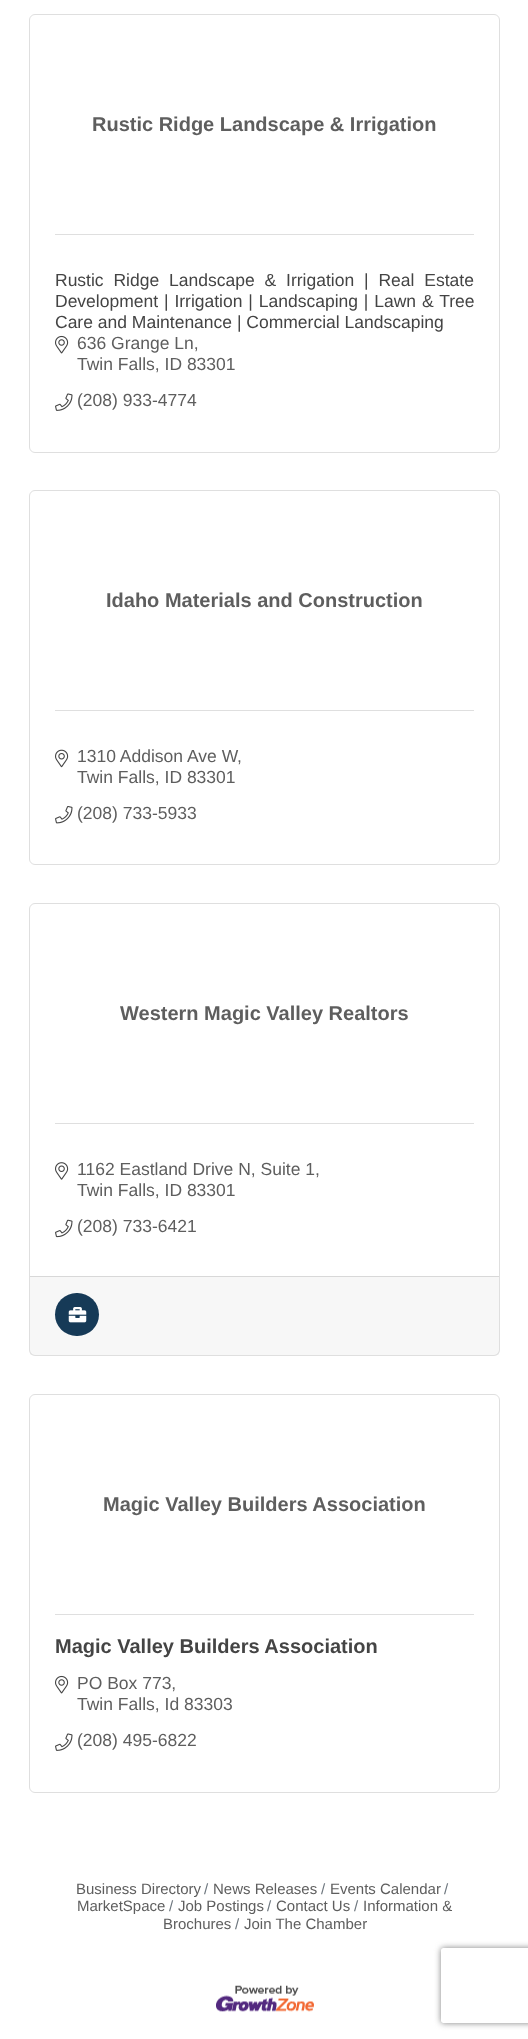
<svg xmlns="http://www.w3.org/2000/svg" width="528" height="2039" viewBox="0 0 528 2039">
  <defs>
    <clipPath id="clip1"><path d="M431 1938H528V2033H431ZM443.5 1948H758.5C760 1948 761 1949 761 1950.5V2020.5C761 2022 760 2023 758.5 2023H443.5C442 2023 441 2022 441 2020.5V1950.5C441 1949 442 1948 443.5 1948Z" clip-rule="evenodd"/></clipPath>
  </defs>
  <rect width="100%" height="100%" fill="rgb(255,255,255)"/>
  <rect x="29.5" y="14.5" width="470" height="438" rx="5.5" fill="none" stroke="rgb(223,223,223)"/>
  <text x="92" y="131" font-family="Liberation Sans" font-size="20" font-weight="bold" fill="rgb(94,94,94)">Rustic Ridge Landscape &amp; Irrigation</text>
  <rect x="55" y="234" width="419" height="1" fill="rgb(223,223,223)"/>
  <g font-family="Liberation Sans" font-size="17.5" fill="rgb(68,68,68)">
    <text>
      <tspan x="55" y="286" word-spacing="5">Rustic Ridge Landscape &amp; Irrigation | Real Estate</tspan>
      <tspan x="55" y="307" word-spacing="1">Development | Irrigation | Landscaping | Lawn &amp; Tree</tspan>
      <tspan x="55" y="328">Care and Maintenance | Commercial Landscaping</tspan>
    </text>
  </g>
  <image x="55" y="335" width="14" height="19" href="pic1.png"/>
  <g font-family="Liberation Sans" font-size="17.5" fill="rgb(94,94,94)">
    <text>
      <tspan x="77" y="349">636 Grange Ln,</tspan>
      <tspan x="77" y="370">Twin Falls, ID 83301</tspan>
    </text>
  </g>
  <image x="55" y="393" width="18" height="18" href="pic2.png"/>
  <text x="77" y="406" font-family="Liberation Sans" font-size="17.5" fill="rgb(94,94,94)">(208) 933-4774</text>
  <rect x="29.5" y="490.5" width="470" height="374" rx="5.5" fill="none" stroke="rgb(223,223,223)"/>
  <text x="106" y="607" font-family="Liberation Sans" font-size="20" font-weight="bold" fill="rgb(94,94,94)">Idaho Materials and Construction</text>
  <rect x="55" y="710" width="419" height="1" fill="rgb(223,223,223)"/>
  <image x="55" y="749" width="14" height="19" href="pic3.png"/>
  <g font-family="Liberation Sans" font-size="17.5" fill="rgb(94,94,94)">
    <text x="77" y="762">1310 Addison Ave W</text>
    <text x="237" y="762">,</text>
    <text x="77" y="783">Twin Falls, ID 83301</text>
  </g>
  <image x="55" y="806" width="18" height="18" href="pic4.png"/>
  <text x="77" y="819" font-family="Liberation Sans" font-size="17.5" fill="rgb(94,94,94)">(208) 733-5933</text>
  <rect x="29.5" y="903.5" width="470" height="452" rx="5.5" fill="none" stroke="rgb(223,223,223)"/>
  <text x="120" y="1020" font-family="Liberation Sans" font-size="20" font-weight="bold" fill="rgb(94,94,94)">Western Magic Valley Realtors</text>
  <rect x="55" y="1123" width="419" height="1" fill="rgb(223,223,223)"/>
  <image x="55" y="1162" width="14" height="18" href="pic5.png"/>
  <g font-family="Liberation Sans" font-size="17.5" fill="rgb(94,94,94)">
    <text>
      <tspan x="77" y="1175">1162 Eastland Drive N, Suite 1,</tspan>
      <tspan x="77" y="1196">Twin Falls, ID 83301</tspan>
    </text>
  </g>
  <image x="55" y="1219" width="18" height="19" href="pic6.png"/>
  <text x="77" y="1232" font-family="Liberation Sans" font-size="17.5" fill="rgb(94,94,94)">(208) 733-6421</text>
  <rect x="30" y="1277" width="469" height="78" fill="rgba(0,0,0,0.03)"/>
  <rect x="30" y="1276" width="469" height="1" fill="rgb(216,216,216)"/>
  <rect x="55" y="1293" width="44" height="43" rx="21.5" fill="rgb(22,58,87)"/>
  <image x="68" y="1307" width="19" height="16" href="pic7.png"/>
  <rect x="29.5" y="1394.5" width="470" height="398" rx="5.5" fill="none" stroke="rgb(223,223,223)"/>
  <text x="103" y="1511" font-family="Liberation Sans" font-size="20" font-weight="bold" fill="rgb(94,94,94)">Magic Valley Builders Association</text>
  <rect x="55" y="1614" width="419" height="1" fill="rgb(223,223,223)"/>
  <text x="55" y="1653" font-family="Liberation Sans" font-size="20" font-weight="bold" fill="rgb(68,68,68)">Magic Valley Builders Association</text>
  <image x="55" y="1675" width="14" height="19" href="pic1.png"/>
  <g font-family="Liberation Sans" font-size="17.5" fill="rgb(94,94,94)">
    <text>
      <tspan x="77" y="1689">PO Box 773,</tspan>
      <tspan x="77" y="1710">Twin Falls, Id 83303</tspan>
    </text>
  </g>
  <image x="55" y="1733" width="18" height="18" href="pic2.png"/>
  <text x="77" y="1746" font-family="Liberation Sans" font-size="17.5" fill="rgb(94,94,94)">(208) 495-6822</text>
  <text x="76" y="1894" font-family="Liberation Sans" font-size="15" fill="rgb(94,94,94)">Business Directory</text>
  <text x="444" y="1894" font-family="Liberation Sans" font-size="15" fill="rgb(108,117,125)">/</text>
  <text x="77" y="1911" font-family="Liberation Sans" font-size="15" fill="rgb(94,94,94)">MarketSpace</text>
  <text x="204" y="1894" font-family="Liberation Sans" font-size="15" fill="rgb(108,117,125)">/</text>
  <text x="213" y="1894" font-family="Liberation Sans" font-size="15" fill="rgb(94,94,94)">News Releases</text>
  <text x="321" y="1894" font-family="Liberation Sans" font-size="15" fill="rgb(108,117,125)">/</text>
  <text x="330" y="1894" font-family="Liberation Sans" font-size="15" fill="rgb(94,94,94)">Events Calendar</text>
  <text x="354" y="1911" font-family="Liberation Sans" font-size="15" fill="rgb(108,117,125)">/</text>
  <g font-family="Liberation Sans" font-size="15" fill="rgb(94,94,94)">
    <text x="363" y="1911">Information &amp;</text>
    <text x="163" y="1929">Brochures</text>
  </g>
  <text x="169" y="1911" font-family="Liberation Sans" font-size="15" fill="rgb(108,117,125)">/</text>
  <text x="178" y="1911" font-family="Liberation Sans" font-size="15" fill="rgb(94,94,94)">Job Postings</text>
  <text x="267" y="1911" font-family="Liberation Sans" font-size="15" fill="rgb(108,117,125)">/</text>
  <text x="276" y="1911" font-family="Liberation Sans" font-size="15" fill="rgb(94,94,94)">Contact Us</text>
  <text x="235" y="1929" font-family="Liberation Sans" font-size="15" fill="rgb(108,117,125)">/</text>
  <text x="244" y="1929" font-family="Liberation Sans" font-size="15" fill="rgb(94,94,94)">Join The Chamber</text>
  <image x="216" y="1985" width="98" height="27" href="pic8.png"/>
  <g clip-path="url(#clip1)">
    <rect x="441" y="1948" width="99" height="75" rx="2.5" fill="rgb(128,128,128)" filter="blur(3px)"/>
  </g>
</svg>
